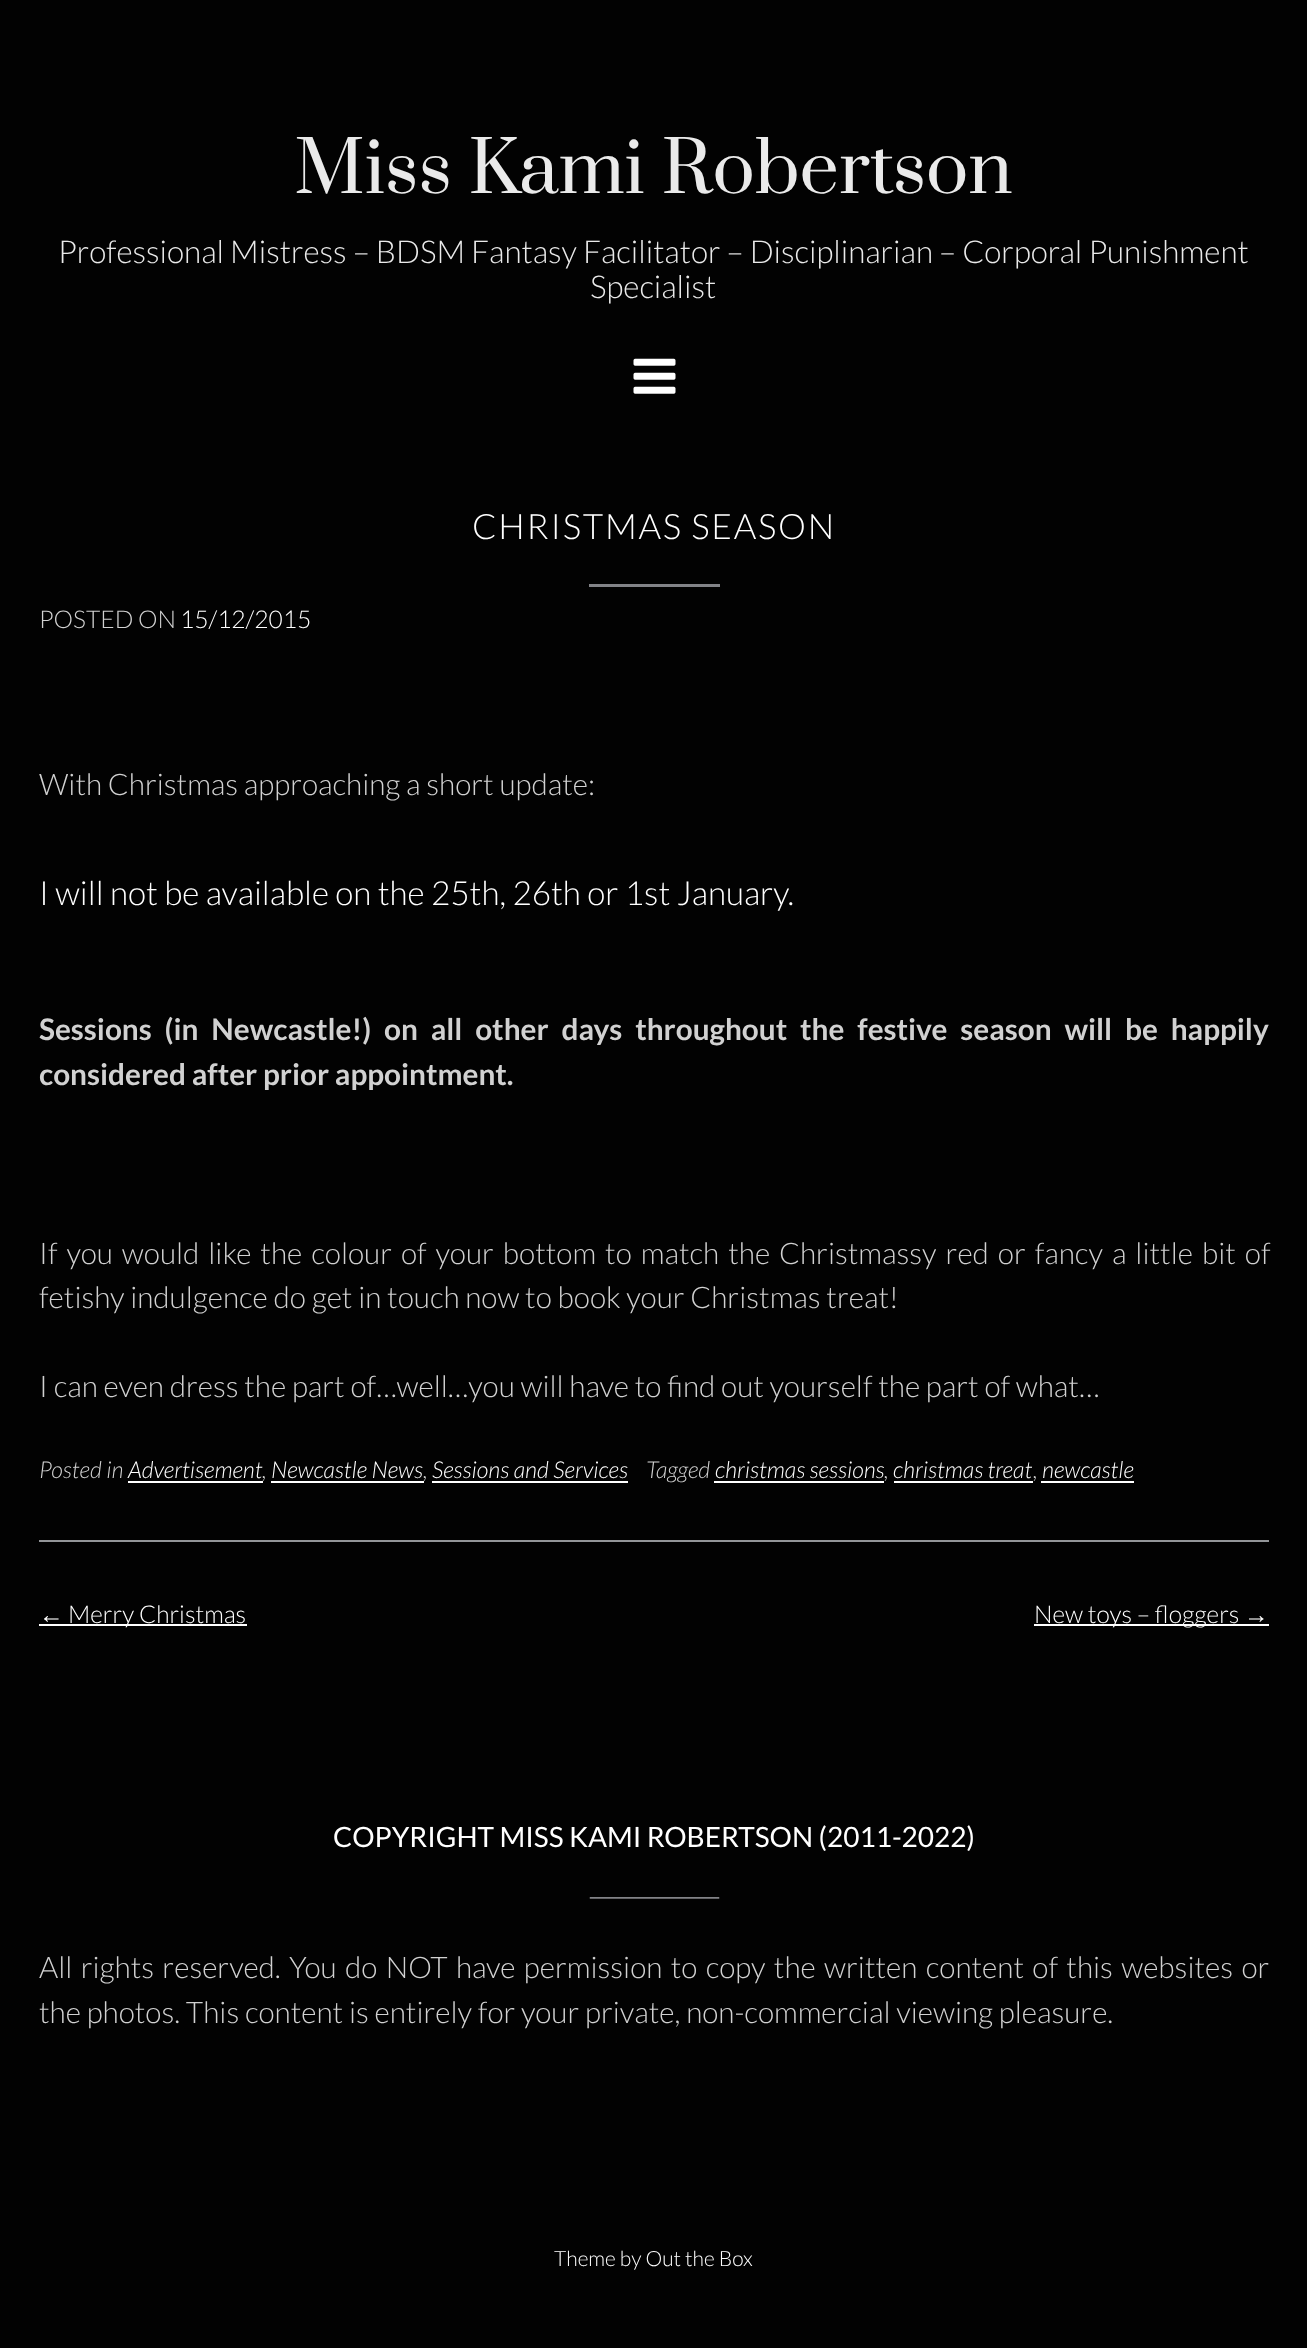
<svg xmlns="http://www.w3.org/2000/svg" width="1307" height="2348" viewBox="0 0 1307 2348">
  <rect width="100%" height="100%" fill="rgb(2,2,2)"/>
  <text x="294" y="193" font-family="Prata" font-size="70" fill="rgb(234,234,234)">Miss Kami Robertson</text>
  <g font-family="Lato" font-size="31.5" font-weight="300" fill="rgb(234,234,234)">
    <text x="58" y="263">Professional Mistress – BDSM Fantasy Facilitator – Disciplinarian – Corporal Punishment</text>
    <text x="590" y="298">Specialist</text>
  </g>
  <image x="633" y="358" width="43" height="36" href="pic1.png"/>
  <rect x="39" y="1540" width="1230" height="2" fill="rgb(147,149,152)"/>
  <rect x="589" y="584" width="131" height="3" fill="rgb(130,131,135)"/>
  <text x="472" y="539" font-family="Lato" font-size="35" font-weight="300" letter-spacing="1.75" fill="rgb(255,255,255)">CHRISTMAS SEASON</text>
  <text x="39" y="628" font-family="Lato" font-size="24.5" font-weight="300" fill="rgb(209,209,209)">POSTED ON</text>
  <text x="180" y="628" font-family="Lato" font-size="24.5" font-weight="300" fill="rgb(255,255,255)">15/12/2015</text>
  <text x="39" y="795" font-family="Lato" font-size="29.75" font-weight="300" fill="rgb(209,209,209)">With Christmas approaching a short update:</text>
  <text x="39" y="905" font-family="Lato" font-size="33.25" font-weight="300" fill="rgb(255,255,255)">I will not be available on the 25th, 26th or 1st January.</text>
  <g font-family="Lato" font-size="29.75" font-weight="bold" fill="rgb(209,209,209)">
    <text>
      <tspan x="39" y="1040" word-spacing="7.1">Sessions (in Newcastle!) on all other days throughout the festive season will be happily</tspan>
      <tspan x="39" y="1085">considered after prior appointment.</tspan>
    </text>
  </g>
  <g font-family="Lato" font-size="29.75" font-weight="300" fill="rgb(209,209,209)">
    <text>
      <tspan x="39" y="1264" word-spacing="3.25">If you would like the colour of your bottom to match the Christmassy red or fancy a little bit of</tspan>
      <tspan x="39" y="1308">fetishy indulgence do get in touch now to book your Christmas treat!</tspan>
    </text>
    <text x="39" y="1397">I can even dress the part of…well…you will have to find out yourself the part of what…</text>
  </g>
  <text x="39" y="1478" font-family="Lato" font-size="23.25" font-weight="300" font-style="italic" fill="rgb(209,209,209)">Posted in</text>
  <text x="128" y="1478" font-family="Lato" font-size="23.25" font-weight="300" font-style="italic" fill="rgb(255,255,255)">Advertisement</text>
  <text x="262" y="1478" font-family="Lato" font-size="23.25" font-weight="300" font-style="italic" fill="rgb(209,209,209)">,</text>
  <rect x="128" y="1481" width="135" height="2" fill="rgb(255,255,255)"/>
  <text x="271" y="1478" font-family="Lato" font-size="23.25" font-weight="300" font-style="italic" fill="rgb(255,255,255)">Newcastle News</text>
  <text x="423" y="1478" font-family="Lato" font-size="23.25" font-weight="300" font-style="italic" fill="rgb(209,209,209)">,</text>
  <rect x="271" y="1481" width="153" height="2" fill="rgb(255,255,255)"/>
  <rect x="432" y="1481" width="196" height="2" fill="rgb(255,255,255)"/>
  <text x="432" y="1478" font-family="Lato" font-size="23.25" font-weight="300" font-style="italic" fill="rgb(255,255,255)">Sessions and Services</text>
  <text x="646" y="1478" font-family="Lato" font-size="23.25" font-weight="300" font-style="italic" fill="rgb(209,209,209)">Tagged</text>
  <text x="715" y="1478" font-family="Lato" font-size="23.25" font-weight="300" font-style="italic" fill="rgb(255,255,255)">christmas sessions</text>
  <text x="884" y="1478" font-family="Lato" font-size="23.25" font-weight="300" font-style="italic" fill="rgb(209,209,209)">,</text>
  <rect x="714" y="1481" width="170" height="2" fill="rgb(255,255,255)"/>
  <text x="893" y="1478" font-family="Lato" font-size="23.25" font-weight="300" font-style="italic" fill="rgb(255,255,255)">christmas treat</text>
  <text x="1033" y="1478" font-family="Lato" font-size="23.25" font-weight="300" font-style="italic" fill="rgb(209,209,209)">,</text>
  <rect x="894" y="1481" width="139" height="2" fill="rgb(255,255,255)"/>
  <rect x="1041" y="1481" width="93" height="2" fill="rgb(255,255,255)"/>
  <text x="1042" y="1478" font-family="Lato" font-size="23.25" font-weight="300" font-style="italic" fill="rgb(255,255,255)">newcastle</text>
  <text x="39" y="1623" font-family="Liberation Serif" font-size="24.5" fill="rgb(255,255,255)">←</text>
  <rect x="39" y="1624" width="208" height="2" fill="rgb(255,255,255)"/>
  <text x="68" y="1623" font-family="Lato" font-size="24.5" font-weight="300" fill="rgb(255,255,255)">Merry Christmas</text>
  <rect x="1034" y="1624" width="235" height="2" fill="rgb(255,255,255)"/>
  <text x="1034" y="1623" font-family="Lato" font-size="24.5" font-weight="300" fill="rgb(255,255,255)">New toys – floggers</text>
  <text x="1244" y="1623" font-family="Liberation Serif" font-size="24.5" fill="rgb(255,255,255)">→</text>
  <image x="589" y="1897" width="131" height="2" href="pic2.png"/>
  <text x="333" y="1847" font-family="Lato" font-size="28" fill="rgb(255,255,255)">COPYRIGHT MISS KAMI ROBERTSON (2011-2022)</text>
  <g font-family="Lato" font-size="29.75" font-weight="300" fill="rgb(209,209,209)">
    <text>
      <tspan x="39" y="1978" word-spacing="2.6">All rights reserved. You do NOT have permission to copy the written content of this websites or</tspan>
      <tspan x="39" y="2023">the photos. This content is entirely for your private, non-commercial viewing pleasure.</tspan>
    </text>
  </g>
  <text x="554" y="2266" font-family="Lato" font-size="21" font-weight="300" fill="rgb(255,255,255)">Theme by Out the Box</text>
</svg>
